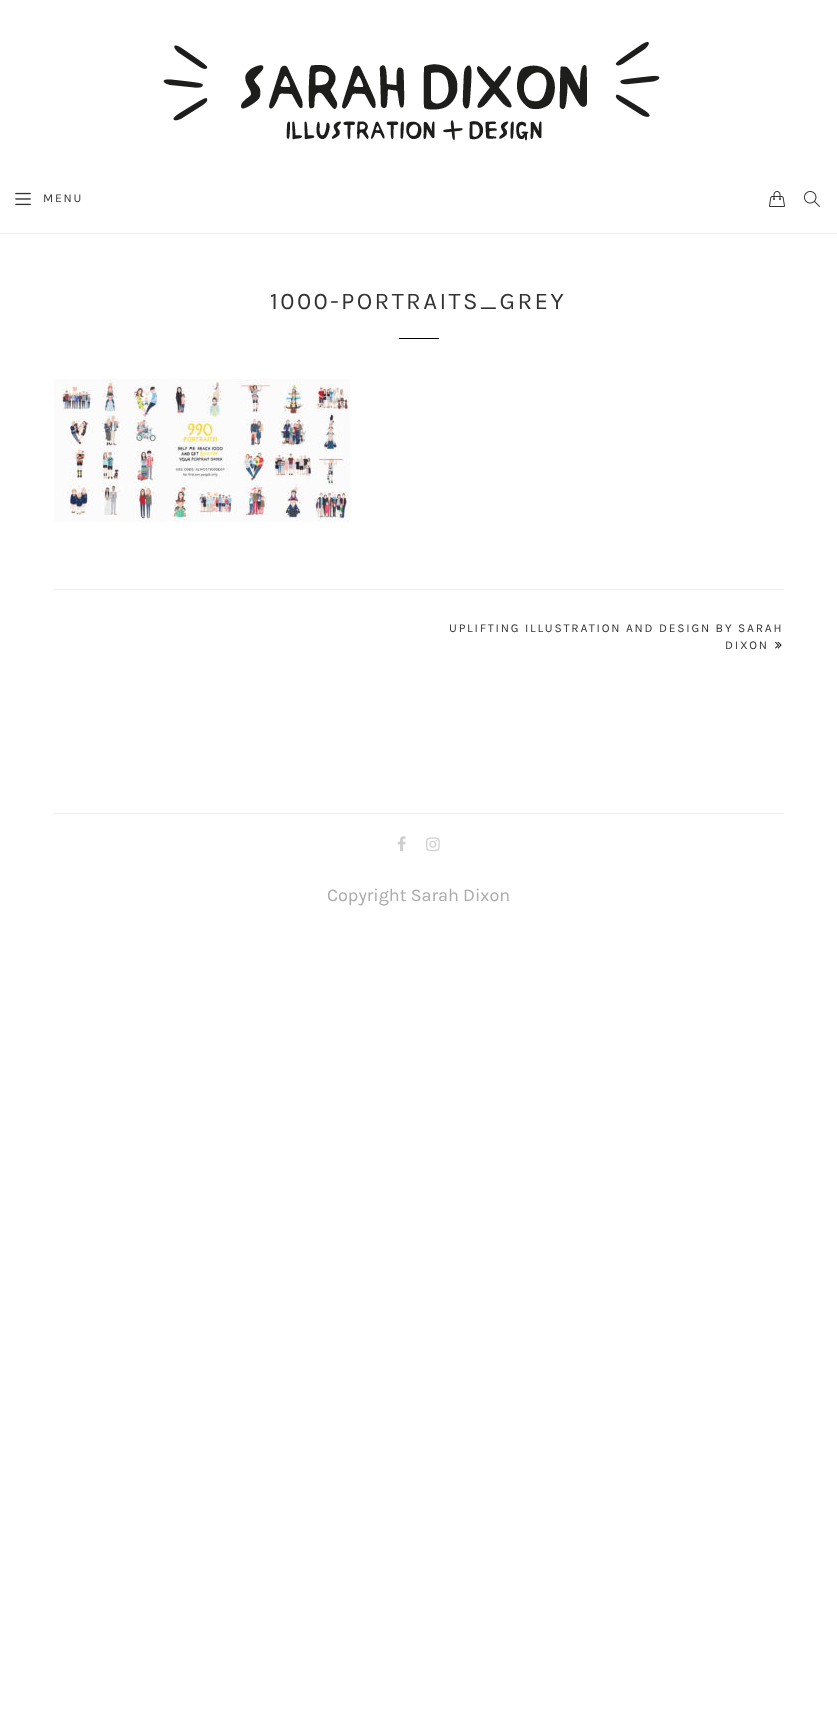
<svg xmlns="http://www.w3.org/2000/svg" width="837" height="1712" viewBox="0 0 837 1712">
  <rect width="100%" height="100%" fill="rgb(255,255,255)"/>
  <image x="163" y="42" width="497" height="99" href="pic1.png"/>
  <image x="15" y="192" width="16" height="14" href="pic2.png"/>
  <text x="43" y="202" font-family="Karla" font-size="12" letter-spacing="1.8" fill="rgb(51,51,51)">MENU</text>
  <image x="769" y="191" width="16" height="16" href="pic3.png"/>
  <image x="804" y="191" width="16" height="16" href="pic4.png"/>
  <rect x="0" y="233" width="837" height="1" fill="rgb(238,238,238)"/>
  <text x="270" y="309" font-family="Karla" font-size="24" letter-spacing="2.4" fill="rgb(51,51,51)">1000-PORTRAITS_GREY</text>
  <rect x="399" y="338" width="40" height="1" fill="rgb(0,0,0)"/>
  <image x="54" y="379" width="296" height="143" href="pic5.png"/>
  <rect x="54" y="589" width="730" height="1" fill="rgb(238,238,238)"/>
  <g font-family="Karla" font-size="12" letter-spacing="1.8" fill="rgb(51,51,51)">
    <text x="449" y="632">UPLIFTING ILLUSTRATION AND DESIGN BY SARAH</text>
    <text x="725" y="649">DIXON</text>
  </g>
  <image x="775" y="641" width="7" height="8" href="pic6.png"/>
  <rect x="54" y="813" width="730" height="1" fill="rgb(238,238,238)"/>
  <image x="397" y="836" width="9" height="16" href="pic7.png"/>
  <image x="426" y="837" width="14" height="15" href="pic8.png"/>
  <text x="327" y="901" font-family="Karla" font-size="18" fill="rgb(170,170,170)">Copyright Sarah Dixon</text>
</svg>
